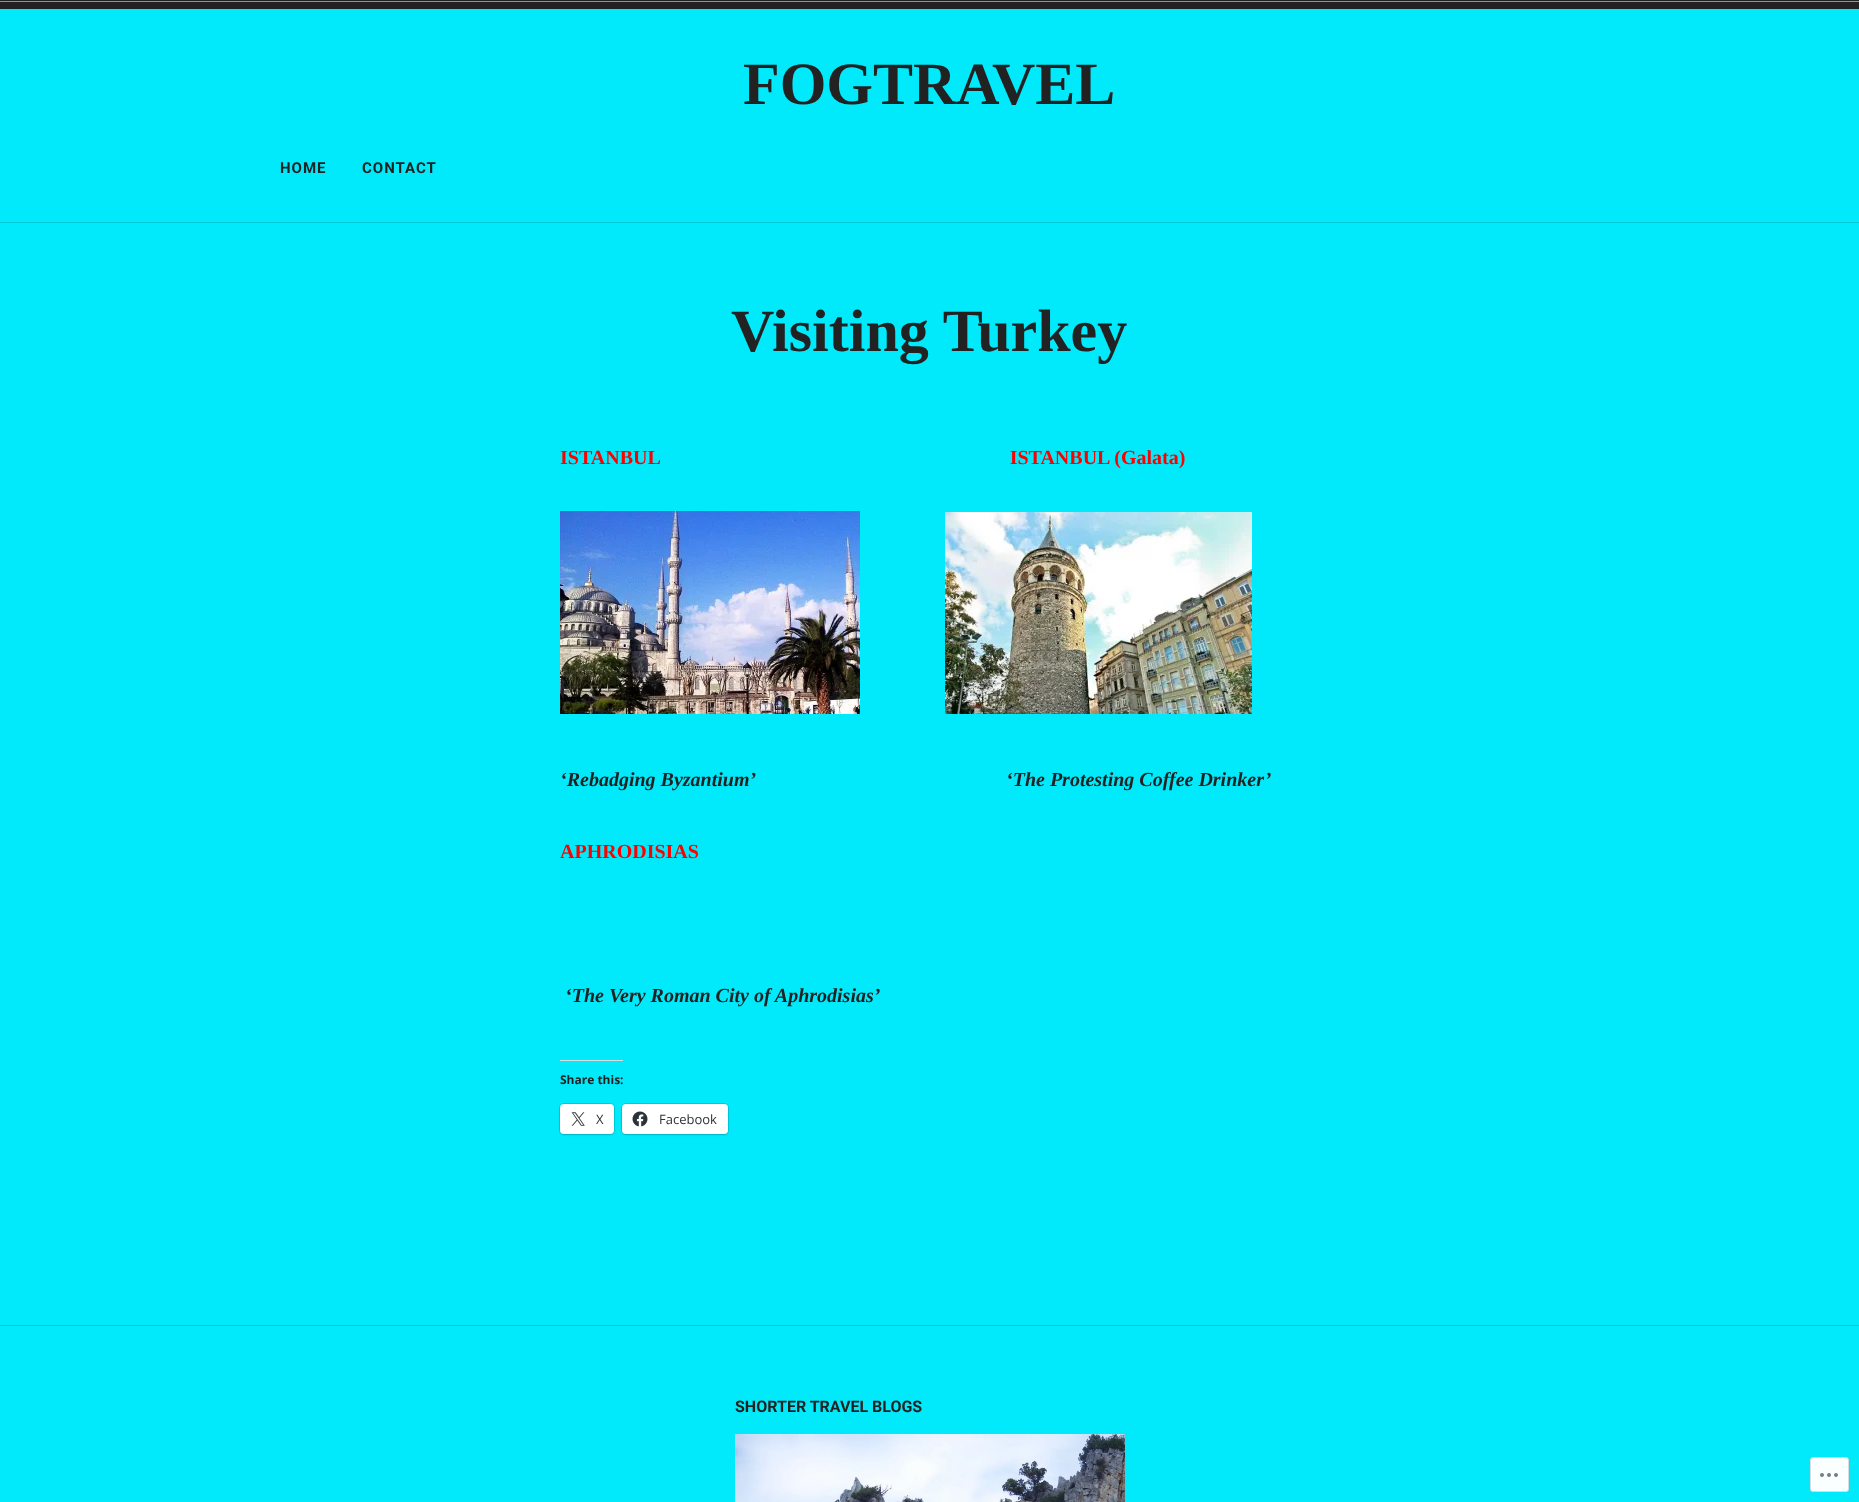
<svg xmlns="http://www.w3.org/2000/svg" width="1859" height="1502" viewBox="0 0 1859 1502">
  <rect width="100%" height="100%" fill="rgb(0,234,252)"/>
  <rect x="0" y="0" width="1859" height="9" fill="rgb(34,34,34)"/>
  <rect x="0" y="222" width="1859" height="1" fill="rgb(0,199,214)"/>
  <rect x="0" y="1" width="1859" height="1" fill="rgb(145,145,145)"/>
  <text x="743" y="104" font-family="Liberation Serif" font-size="60" font-weight="bold" fill="rgb(34,34,34)">FOGTRAVEL</text>
  <g font-family="Roboto" font-size="15" font-weight="bold" letter-spacing="1" fill="rgb(34,34,34)">
    <text x="280" y="173">HOME</text>
    <text x="362" y="173">CONTACT</text>
  </g>
  <text x="731" y="351" font-family="Liberation Serif" font-size="60" font-weight="bold" fill="rgb(34,34,34)">Visiting Turkey</text>
  <text x="560" y="464" font-family="Liberation Serif" font-size="20" font-weight="bold" fill="rgb(255,0,0)" xml:space="preserve">ISTANBUL                                                                      ISTANBUL (Galata)</text>
  <image x="560" y="511" width="300" height="203" href="pic1.png"/>
  <image x="945" y="512" width="307" height="202" href="pic2.png"/>
  <g font-family="Liberation Serif" font-size="20" font-weight="bold" font-style="italic" fill="rgb(34,34,34)">
    <text x="560" y="786">‘Rebadging Byzantium’</text>
    <text x="1006" y="786">‘The Protesting Coffee Drinker’</text>
  </g>
  <text x="560" y="858" font-family="Liberation Serif" font-size="20" font-weight="bold" fill="rgb(255,0,0)">APHRODISIAS</text>
  <text x="565" y="1002" font-family="Liberation Serif" font-size="20" font-weight="bold" font-style="italic" fill="rgb(34,34,34)">‘The Very Roman City of Aphrodisias’</text>
  <rect x="560" y="1060" width="63" height="1" fill="rgb(220,220,222)"/>
  <text x="560" y="1084" font-family="Open Sans" font-size="12" font-weight="bold" fill="rgb(34,34,34)">Share this:</text>
  <rect x="559.5" y="1103.5" width="55" height="31" rx="4.5" fill="none" stroke="rgb(0,206,222)"/>
  <rect x="560" y="1105" width="54" height="30" rx="4" fill="rgba(0,0,0,0.12)" filter="blur(1px)"/>
  <rect x="560" y="1104" width="54" height="30" rx="4" fill="rgb(255,255,255)"/>
  <image x="571" y="1112" width="14" height="14" href="pic3.png"/>
  <text x="596" y="1124" font-family="Open Sans" font-size="13" fill="rgb(44,51,56)">X</text>
  <rect x="621.5" y="1103.5" width="107" height="31" rx="4.5" fill="none" stroke="rgb(0,206,222)"/>
  <rect x="622" y="1105" width="106" height="30" rx="4" fill="rgba(0,0,0,0.12)" filter="blur(1px)"/>
  <rect x="622" y="1104" width="106" height="30" rx="4" fill="rgb(255,255,255)"/>
  <image x="632" y="1111" width="16" height="16" href="pic4.png"/>
  <text x="659" y="1124" font-family="Open Sans" font-size="13" fill="rgb(44,51,56)">Facebook</text>
  <rect x="0" y="1325" width="1859" height="1" fill="rgb(0,199,214)"/>
  <text x="735" y="1412" font-family="Roboto" font-size="16" font-weight="bold" fill="rgb(34,34,34)">SHORTER TRAVEL BLOGS</text>
  <image x="735" y="1434" width="390" height="68" href="pic5.png"/>
  <rect x="1810.5" y="1457.5" width="38" height="34" rx="2.5" fill="rgb(250,255,255)" stroke="rgb(216,220,223)"/>
  <image x="1820" y="1473" width="18" height="4" href="pic6.png"/>
</svg>
